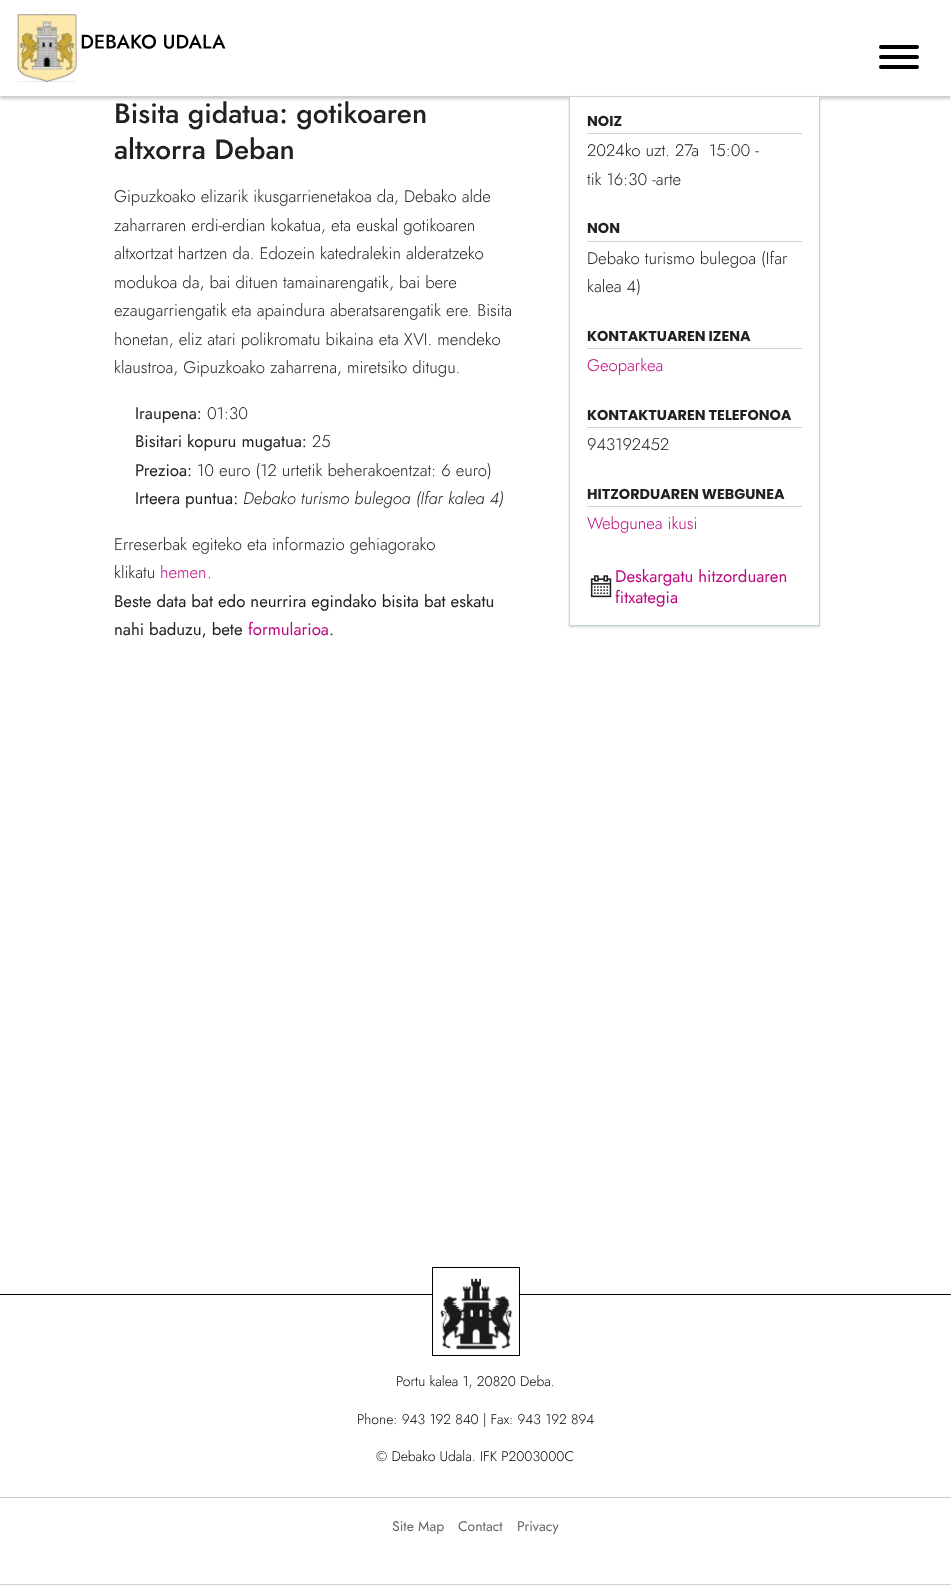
<svg xmlns="http://www.w3.org/2000/svg" width="951" height="1585" viewBox="0 0 951 1585">
  <defs>
    <clipPath id="clip1"><rect x="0" y="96" width="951" height="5"/></clipPath>
  </defs>
  <rect width="100%" height="100%" fill="rgb(255,255,255)"/>
  <g clip-path="url(#clip1)">
    <rect x="0" y="3" width="951" height="96" fill="rgba(1,1,1,0.2)" filter="blur(1.5px)"/>
  </g>
  <image x="17" y="14" width="209" height="68" href="pic1.png"/>
  <rect x="879" y="45" width="40" height="4" rx="2" fill="rgb(0,0,0)"/>
  <rect x="879" y="55" width="40" height="4" rx="2" fill="rgb(0,0,0)"/>
  <rect x="879" y="65" width="40" height="4" rx="2" fill="rgb(0,0,0)"/>
  <g font-family="Jost" font-size="28" font-weight="500" fill="rgb(33,33,33)">
    <text>
      <tspan x="114" y="123">Bisita gidatua: gotikoaren</tspan>
      <tspan x="114" y="159">altxorra Deban</tspan>
    </text>
  </g>
  <g font-family="Jost" font-size="16.8" font-weight="300" fill="rgb(33,33,33)">
    <text>
      <tspan x="114" y="202">Gipuzkoako elizarik ikusgarrienetakoa da, Debako alde</tspan>
      <tspan x="114" y="231">zaharraren erdi-erdian kokatua, eta euskal gotikoaren</tspan>
      <tspan x="114" y="259">altxortzat hartzen da. Edozein katedralekin alderatzeko</tspan>
      <tspan x="114" y="288">modukoa da, bai dituen tamainarengatik, bai bere</tspan>
      <tspan x="114" y="316">ezaugarriengatik eta apaindura aberatsarengatik ere. Bisita</tspan>
      <tspan x="114" y="345">honetan, eliz atari polikromatu bikaina eta XVI. mendeko</tspan>
      <tspan x="114" y="373">klaustroa, Gipuzkoako zaharrena, miretsiko ditugu.</tspan>
    </text>
  </g>
  <text x="135" y="419" font-family="Jost" font-size="16.8" fill="rgb(33,33,33)">Iraupena:</text>
  <text x="207" y="419" font-family="Jost" font-size="16.8" font-weight="300" fill="rgb(33,33,33)">01:30</text>
  <text x="135" y="447" font-family="Jost" font-size="16.8" fill="rgb(33,33,33)">Bisitari kopuru mugatua:</text>
  <text x="312" y="447" font-family="Jost" font-size="16.8" font-weight="300" fill="rgb(33,33,33)">25</text>
  <text x="135" y="476" font-family="Jost" font-size="16.8" fill="rgb(33,33,33)">Prezioa:</text>
  <text x="197" y="476" font-family="Jost" font-size="16.8" font-weight="300" fill="rgb(33,33,33)">10 euro (12 urtetik beherakoentzat: 6 euro)</text>
  <text x="135" y="504" font-family="Jost" font-size="16.8" fill="rgb(33,33,33)">Irteera puntua:</text>
  <text x="243" y="504" font-family="Jost" font-size="16.8" font-weight="300" font-style="italic" fill="rgb(33,33,33)">Debako turismo bulegoa (Ifar kalea 4)</text>
  <g font-family="Jost" font-size="16.8" font-weight="300" fill="rgb(33,33,33)">
    <text>
      <tspan x="114" y="550">Erreserbak egiteko eta informazio gehiagorako</tspan>
      <tspan x="114" y="578">klikatu</tspan>
    </text>
  </g>
  <text x="160" y="578" font-family="Jost" font-size="16.8" font-weight="300" fill="rgb(189,9,127)">hemen</text>
  <text x="207" y="578" font-family="Jost" font-size="16.8" font-weight="300" fill="rgb(33,33,33)">.</text>
  <g font-family="Jost" font-size="16.8" fill="rgb(33,33,33)">
    <text>
      <tspan x="114" y="607">Beste data bat edo neurrira egindako bisita bat eskatu</tspan>
      <tspan x="114" y="635">nahi baduzu, bete</tspan>
    </text>
  </g>
  <text x="248" y="635" font-family="Jost" font-size="16.8" fill="rgb(189,9,127)">formularioa</text>
  <text x="329" y="635" font-family="Jost" font-size="16.8" fill="rgb(33,33,33)">.</text>
  <rect x="569" y="97" width="251" height="530" fill="rgb(199,213,216)" filter="blur(1px)"/>
  <rect x="569.5" y="96.5" width="250" height="529" fill="rgb(255,255,255)" stroke="rgb(199,213,216)"/>
  <rect x="587" y="133" width="215" height="1" fill="rgb(199,213,216)"/>
  <text x="587" y="126" font-family="Poppins" font-size="14.4" font-weight="bold" fill="rgb(33,33,33)">NOIZ</text>
  <g font-family="Jost" font-size="16.8" font-weight="300" fill="rgb(33,33,33)">
    <text x="587" y="156">2024ko uzt. 27a</text>
    <text x="709" y="156">15:00 -</text>
    <text x="587" y="185">tik 16:30 -arte</text>
  </g>
  <rect x="587" y="241" width="215" height="1" fill="rgb(199,213,216)"/>
  <text x="587" y="233" font-family="Poppins" font-size="14.4" font-weight="bold" fill="rgb(33,33,33)">NON</text>
  <g font-family="Jost" font-size="16.8" font-weight="300" fill="rgb(33,33,33)">
    <text>
      <tspan x="587" y="264">Debako turismo bulegoa (Ifar</tspan>
      <tspan x="587" y="292">kalea 4)</tspan>
    </text>
  </g>
  <rect x="587" y="348" width="215" height="1" fill="rgb(199,213,216)"/>
  <text x="587" y="341" font-family="Poppins" font-size="14.4" font-weight="bold" fill="rgb(33,33,33)">KONTAKTUAREN IZENA</text>
  <text x="587" y="371" font-family="Jost" font-size="16.8" font-weight="300" fill="rgb(189,9,127)">Geoparkea</text>
  <rect x="587" y="427" width="215" height="1" fill="rgb(199,213,216)"/>
  <text x="587" y="420" font-family="Poppins" font-size="14.4" font-weight="bold" fill="rgb(33,33,33)">KONTAKTUAREN TELEFONOA</text>
  <text x="587" y="450" font-family="Jost" font-size="16.8" font-weight="300" fill="rgb(33,33,33)">943192452</text>
  <rect x="587" y="506" width="215" height="1" fill="rgb(199,213,216)"/>
  <text x="587" y="499" font-family="Poppins" font-size="14.4" font-weight="bold" fill="rgb(33,33,33)">HITZORDUAREN WEBGUNEA</text>
  <text x="587" y="529" font-family="Jost" font-size="16.8" font-weight="300" fill="rgb(189,9,127)">Webgunea ikusi</text>
  <image x="590" y="575" width="22" height="23" href="pic2.png"/>
  <g font-family="Jost" font-size="16.8" fill="rgb(189,9,127)">
    <text>
      <tspan x="615" y="582">Deskargatu hitzorduaren</tspan>
      <tspan x="615" y="603">fitxategia</tspan>
    </text>
  </g>
  <rect x="0" y="1584" width="951" height="1" fill="rgb(199,213,216)"/>
  <rect x="0" y="1294" width="951" height="1" fill="rgb(0,0,0)"/>
  <rect x="432.5" y="1267.5" width="87" height="88" fill="none" stroke="rgb(0,0,0)"/>
  <image x="433" y="1278" width="86" height="72" href="pic3.png"/>
  <g font-family="Jost" font-size="14" font-weight="300" fill="rgb(0,0,0)">
    <text x="396" y="1386">Portu kalea 1, 20820 Deba.</text>
    <text x="357" y="1424">Phone: 943 192 840 | Fax: 943 192 894</text>
    <text x="376" y="1461">© Debako Udala. IFK P2003000C</text>
  </g>
  <rect x="0" y="1497" width="951" height="1" fill="rgb(204,204,204)"/>
  <g font-family="Jost" font-size="14" fill="rgb(102,102,102)">
    <text x="392" y="1531">Site Map</text>
    <text x="458" y="1531">Contact</text>
    <text x="517" y="1531">Privacy</text>
  </g>
</svg>
